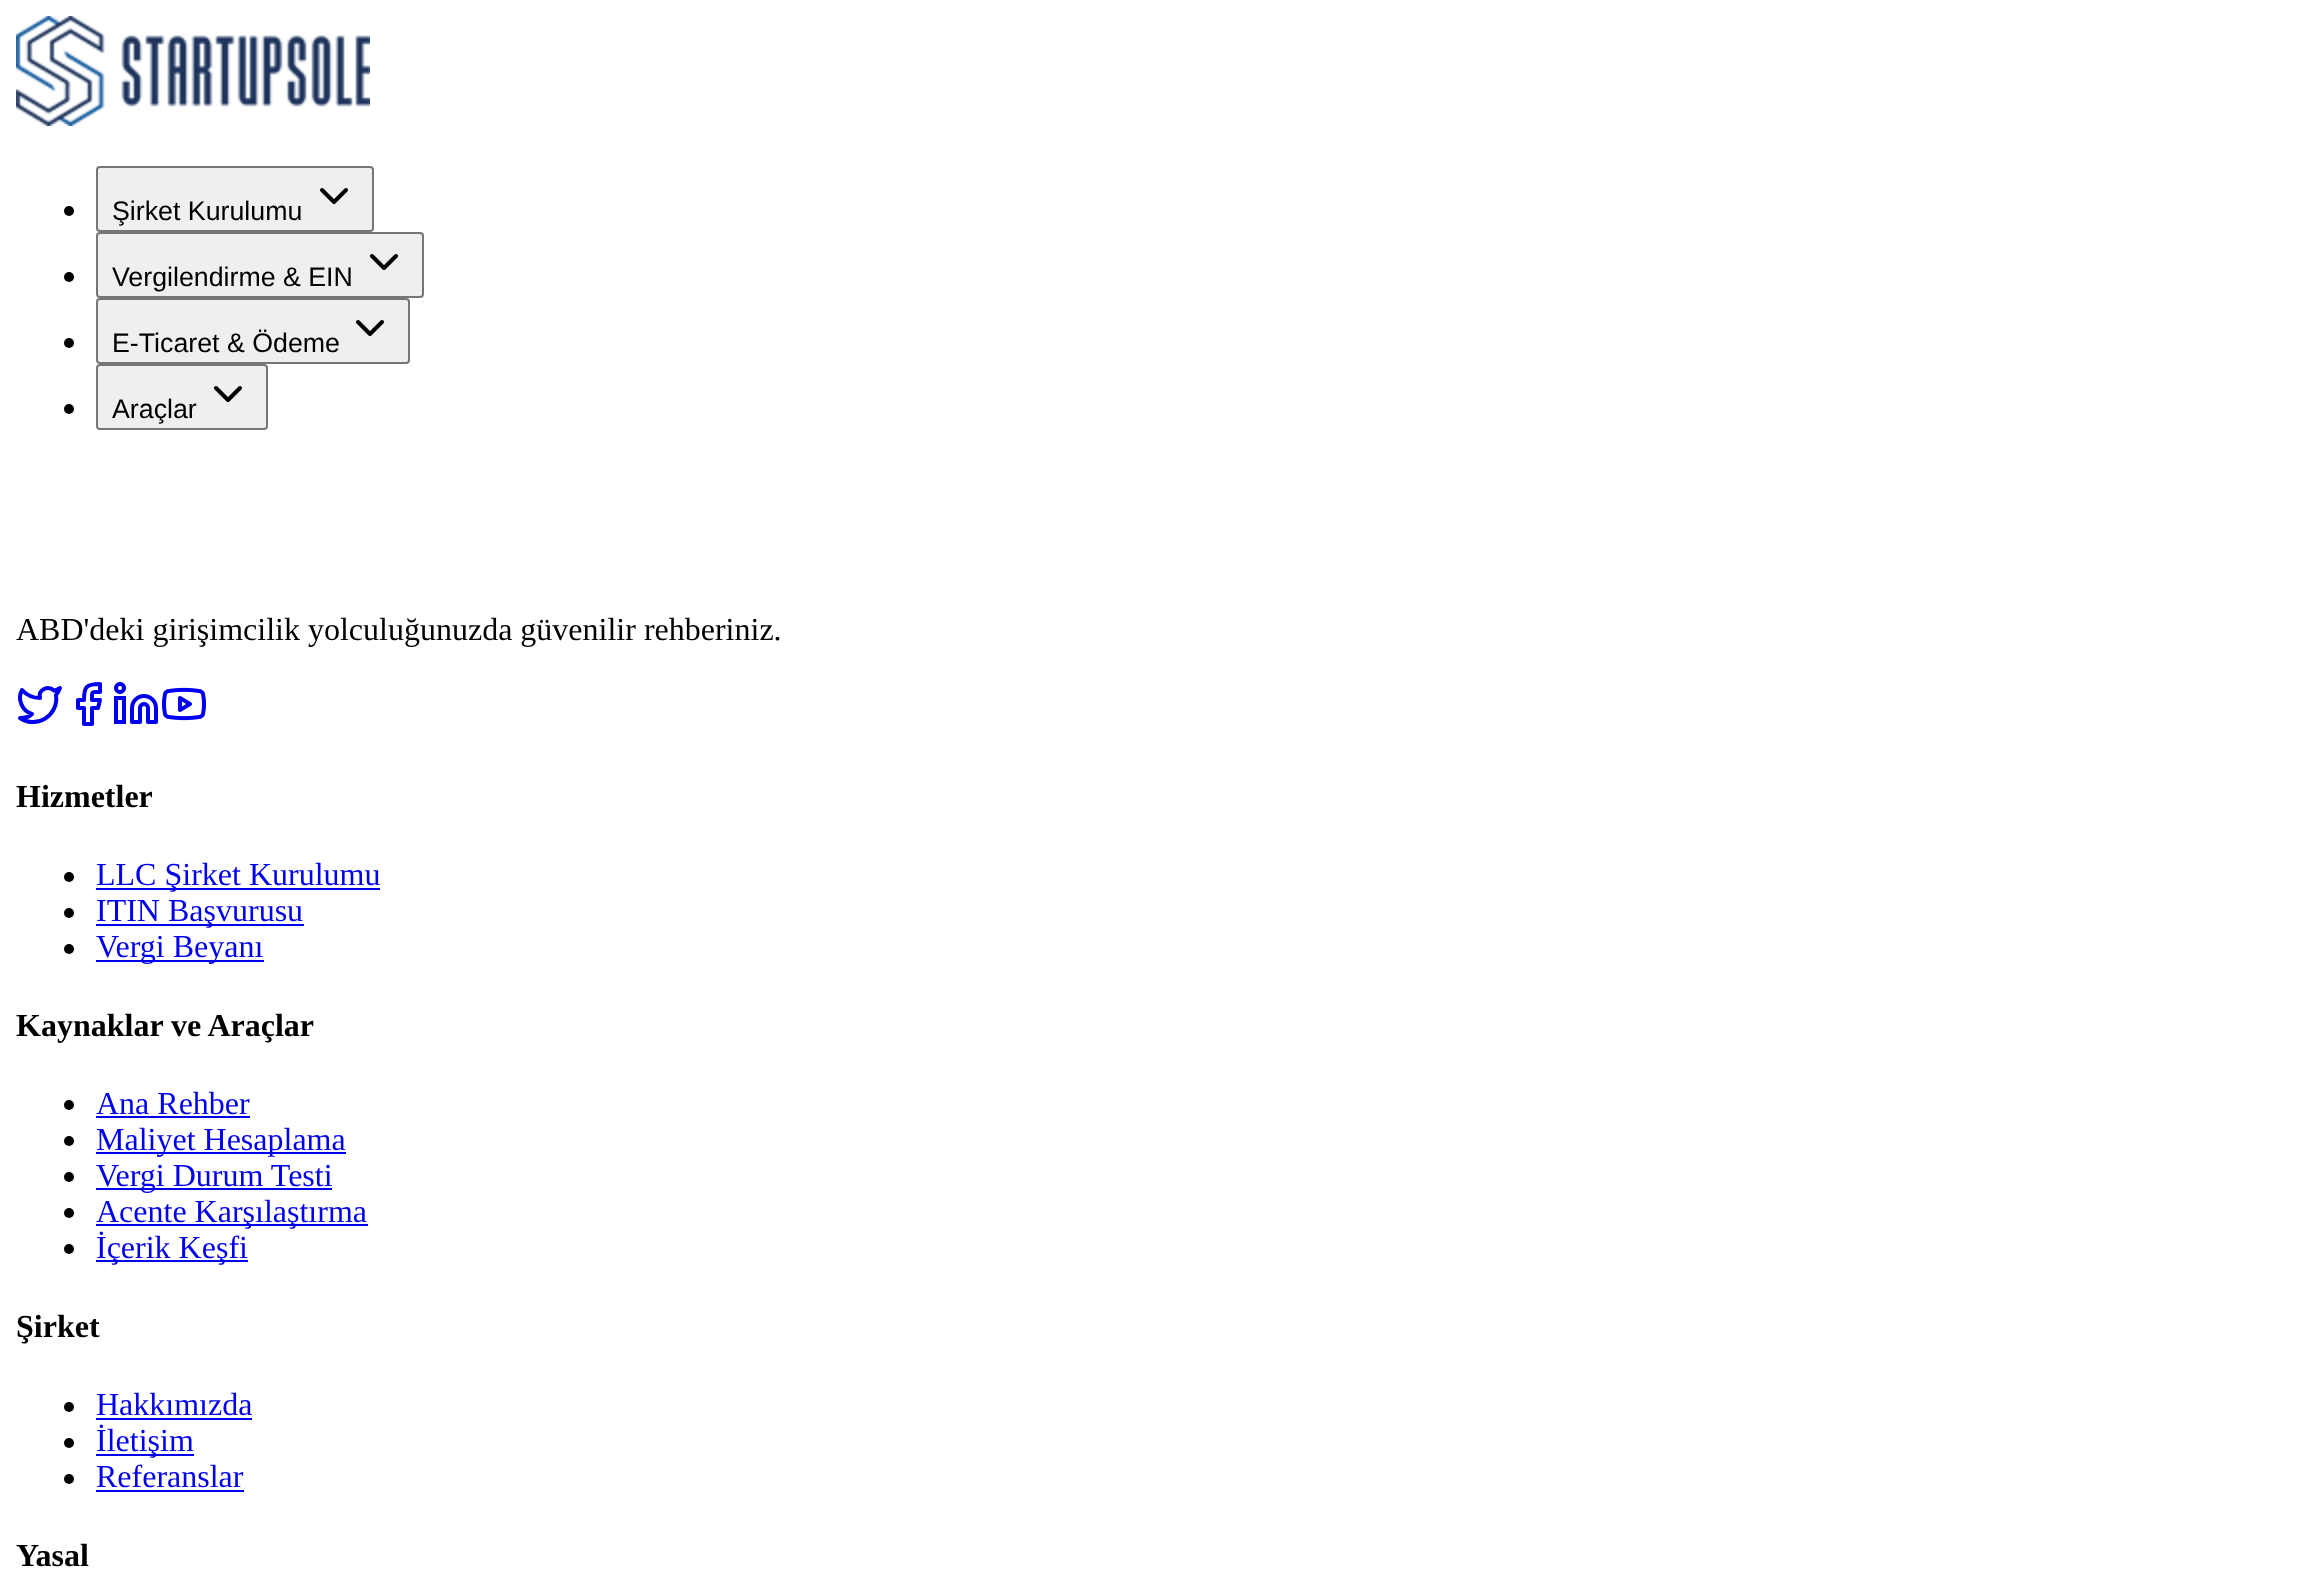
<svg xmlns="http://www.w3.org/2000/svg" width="2302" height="1596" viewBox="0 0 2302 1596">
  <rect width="100%" height="100%" fill="rgb(255,255,255)"/>
  <image x="16" y="16" width="354" height="110" href="pic1.png"/>
  <circle cx="69" cy="211" r="5" fill="rgb(0,0,0)"/>
  <rect x="97" y="167" width="276" height="64" rx="3" fill="rgb(239,239,239)" stroke="rgb(118,118,118)" stroke-width="2"/>
  <path d="M322 190L334 202L346 190" fill="none" stroke="rgb(0,0,0)" stroke-width="4" stroke-linecap="round" stroke-linejoin="round"/>
  <text x="112" y="220" font-family="Liberation Sans" font-size="26.75" fill="rgb(0,0,0)">Şirket Kurulumu</text>
  <circle cx="69" cy="277" r="5" fill="rgb(0,0,0)"/>
  <rect x="97" y="233" width="326" height="64" rx="3" fill="rgb(239,239,239)" stroke="rgb(118,118,118)" stroke-width="2"/>
  <path d="M372 256L384 268L396 256" fill="none" stroke="rgb(0,0,0)" stroke-width="4" stroke-linecap="round" stroke-linejoin="round"/>
  <text x="112" y="286" font-family="Liberation Sans" font-size="26.75" fill="rgb(0,0,0)">Vergilendirme &amp; EIN</text>
  <circle cx="69" cy="343" r="5" fill="rgb(0,0,0)"/>
  <rect x="97" y="299" width="312" height="64" rx="3" fill="rgb(239,239,239)" stroke="rgb(118,118,118)" stroke-width="2"/>
  <text x="112" y="352" font-family="Liberation Sans" font-size="26.75" fill="rgb(0,0,0)">E-Ticaret &amp; Ödeme</text>
  <path d="M358 322L370 334L382 322" fill="none" stroke="rgb(0,0,0)" stroke-width="4" stroke-linecap="round" stroke-linejoin="round"/>
  <circle cx="69" cy="409" r="5" fill="rgb(0,0,0)"/>
  <rect x="97" y="365" width="170" height="64" rx="3" fill="rgb(239,239,239)" stroke="rgb(118,118,118)" stroke-width="2"/>
  <path d="M216 388L228 400L240 388" fill="none" stroke="rgb(0,0,0)" stroke-width="4" stroke-linecap="round" stroke-linejoin="round"/>
  <text x="112" y="418" font-family="Liberation Sans" font-size="26.75" fill="rgb(0,0,0)">Araçlar</text>
  <text x="16" y="640" font-family="Liberation Serif" font-size="32" fill="rgb(0,0,0)">ABD'deki girişimcilik yolculuğunuzda güvenilir rehberiniz.</text>
  <path d="M60 688C60 688 58.5 692 56 695C59 715 37 729.5 20 718C24.5 718 29 717 32 714C22 711 17 699 22 690C26.5 695 33 698 40 698C38 689.5 48 685 54 690.5C56 690.5 60 688 60 688Z" fill="none" stroke="rgb(0,0,238)" stroke-width="4" stroke-linecap="round" stroke-linejoin="round"/>
  <path d="M100 684C86.5 684 84 686.5 84 700H78V708H84V724H92V708H98L100 700H92C92 691 91 692 100 692Z" fill="none" stroke="rgb(0,0,238)" stroke-width="4" stroke-linecap="round" stroke-linejoin="round"/>
  <image x="114" y="682" width="44" height="42" href="pic2.png"/>
  <image x="161" y="687" width="46" height="34" href="pic3.png"/>
  <text x="16" y="807" font-family="Liberation Serif" font-size="32" font-weight="bold" fill="rgb(0,0,0)">Hizmetler</text>
  <circle cx="69" cy="877" r="5" fill="rgb(0,0,0)"/>
  <rect x="96" y="888" width="284" height="2" fill="rgb(0,0,238)"/>
  <text x="96" y="885" font-family="Liberation Serif" font-size="32" fill="rgb(0,0,238)">LLC Şirket Kurulumu</text>
  <circle cx="69" cy="913" r="5" fill="rgb(0,0,0)"/>
  <rect x="96" y="924" width="208" height="2" fill="rgb(0,0,238)"/>
  <text x="96" y="921" font-family="Liberation Serif" font-size="32" fill="rgb(0,0,238)">ITIN Başvurusu</text>
  <circle cx="69" cy="949" r="5" fill="rgb(0,0,0)"/>
  <rect x="96" y="960" width="168" height="2" fill="rgb(0,0,238)"/>
  <text x="96" y="957" font-family="Liberation Serif" font-size="32" fill="rgb(0,0,238)">Vergi Beyanı</text>
  <text x="16" y="1036" font-family="Liberation Serif" font-size="32" font-weight="bold" fill="rgb(0,0,0)">Kaynaklar ve Araçlar</text>
  <circle cx="69" cy="1105" r="5" fill="rgb(0,0,0)"/>
  <text x="96" y="1114" font-family="Liberation Serif" font-size="32" fill="rgb(0,0,238)">Ana Rehber</text>
  <rect x="96" y="1116" width="154" height="2" fill="rgb(0,0,238)"/>
  <circle cx="69" cy="1141" r="5" fill="rgb(0,0,0)"/>
  <rect x="96" y="1152" width="250" height="2" fill="rgb(0,0,238)"/>
  <text x="96" y="1150" font-family="Liberation Serif" font-size="32" fill="rgb(0,0,238)">Maliyet Hesaplama</text>
  <circle cx="69" cy="1177" r="5" fill="rgb(0,0,0)"/>
  <rect x="96" y="1188" width="236" height="2" fill="rgb(0,0,238)"/>
  <text x="96" y="1186" font-family="Liberation Serif" font-size="32" fill="rgb(0,0,238)">Vergi Durum Testi</text>
  <circle cx="69" cy="1213" r="5" fill="rgb(0,0,0)"/>
  <rect x="96" y="1224" width="272" height="2" fill="rgb(0,0,238)"/>
  <text x="96" y="1222" font-family="Liberation Serif" font-size="32" fill="rgb(0,0,238)">Acente Karşılaştırma</text>
  <circle cx="69" cy="1249" r="5" fill="rgb(0,0,0)"/>
  <rect x="96" y="1260" width="152" height="2" fill="rgb(0,0,238)"/>
  <text x="96" y="1258" font-family="Liberation Serif" font-size="32" fill="rgb(0,0,238)">İçerik Keşfi</text>
  <text x="16" y="1337" font-family="Liberation Serif" font-size="32" font-weight="bold" fill="rgb(0,0,0)">Şirket</text>
  <circle cx="69" cy="1407" r="5" fill="rgb(0,0,0)"/>
  <text x="96" y="1415" font-family="Liberation Serif" font-size="32" fill="rgb(0,0,238)">Hakkımızda</text>
  <rect x="96" y="1418" width="156" height="2" fill="rgb(0,0,238)"/>
  <circle cx="69" cy="1443" r="5" fill="rgb(0,0,0)"/>
  <rect x="96" y="1454" width="98" height="2" fill="rgb(0,0,238)"/>
  <text x="96" y="1451" font-family="Liberation Serif" font-size="32" fill="rgb(0,0,238)">İletişim</text>
  <circle cx="69" cy="1479" r="5" fill="rgb(0,0,0)"/>
  <text x="96" y="1487" font-family="Liberation Serif" font-size="32" fill="rgb(0,0,238)">Referanslar</text>
  <rect x="96" y="1490" width="148" height="2" fill="rgb(0,0,238)"/>
  <text x="16" y="1566" font-family="Liberation Serif" font-size="32" font-weight="bold" fill="rgb(0,0,0)">Yasal</text>
</svg>
